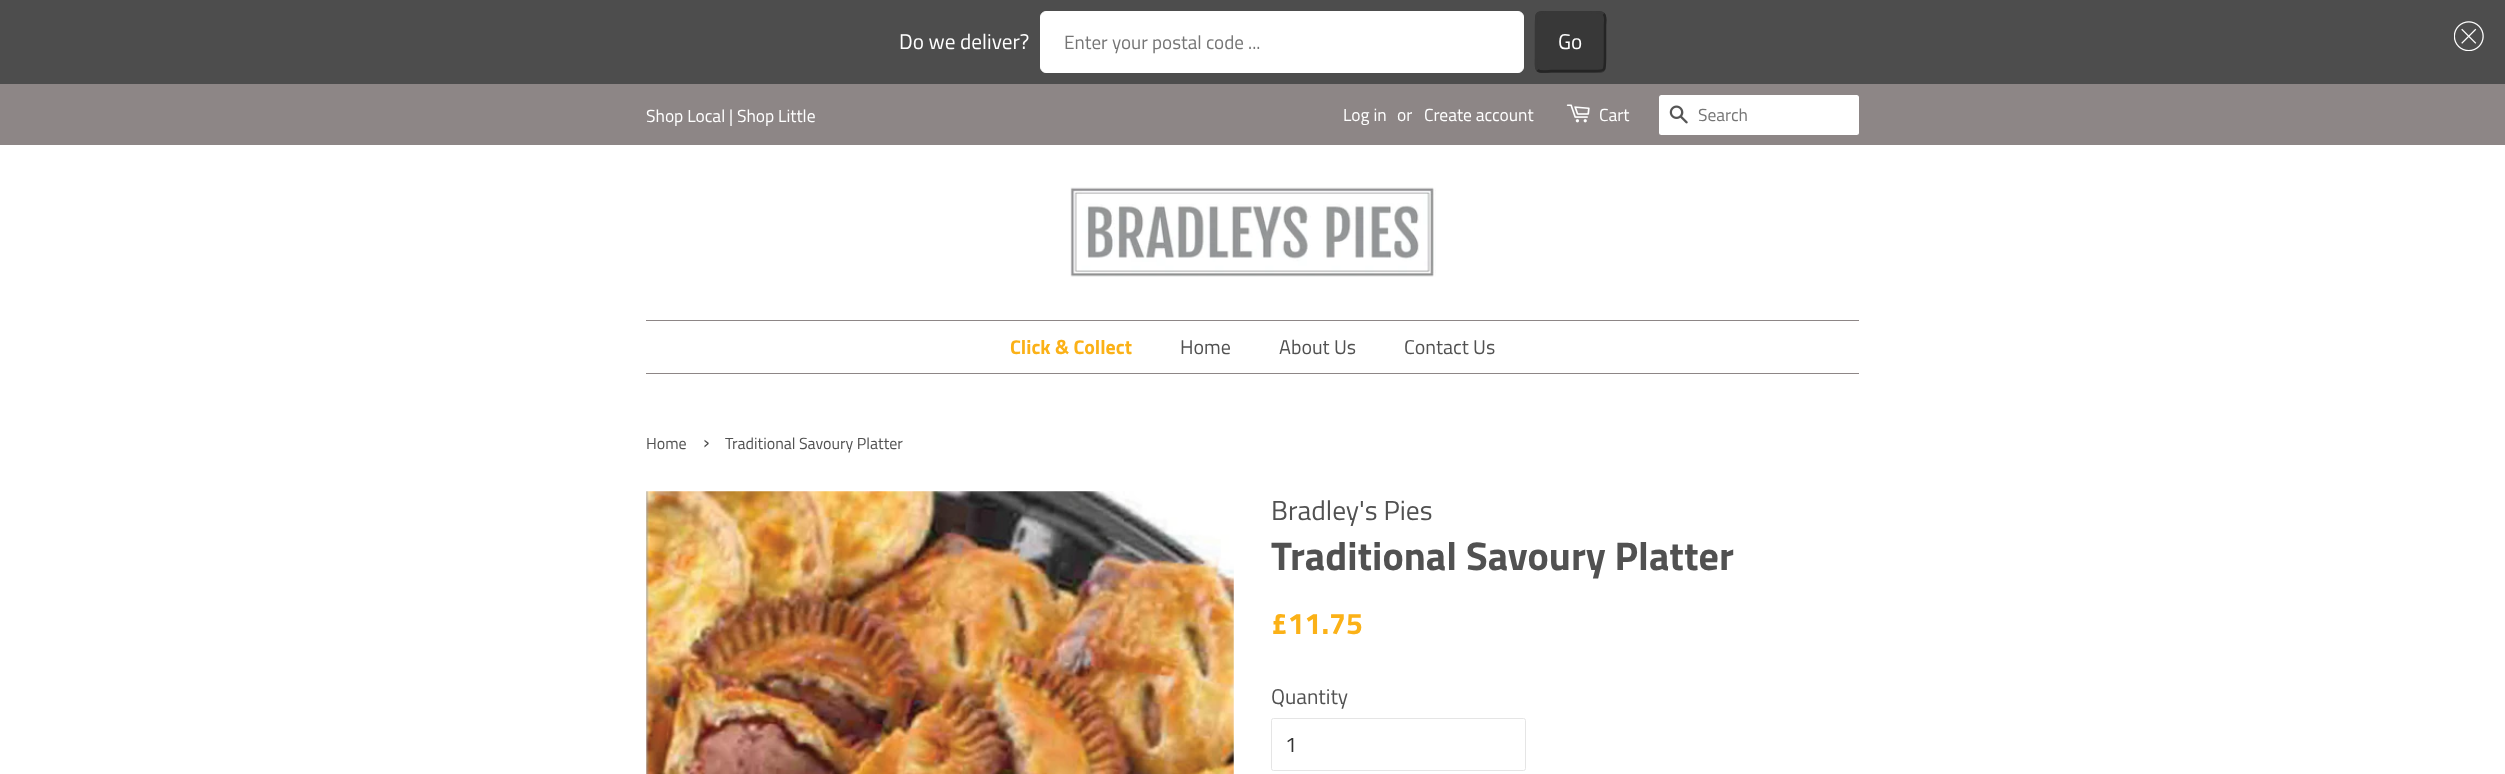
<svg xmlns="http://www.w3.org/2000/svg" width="2505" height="774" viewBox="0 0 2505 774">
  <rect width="100%" height="100%" fill="rgb(255,255,255)"/>
  <rect x="0" y="0" width="2505" height="84" fill="rgb(77,77,77)"/>
  <text x="899" y="49" font-family="Titillium Web" font-size="21.25" fill="rgb(255,255,255)">Do we deliver?</text>
  <rect x="1040.5" y="11.5" width="483" height="61" rx="5.5" fill="rgb(255,255,255)" stroke="rgb(255,255,255)"/>
  <text x="1064" y="49" font-family="Titillium Web" font-size="19.1" fill="rgb(117,117,117)">Enter your postal code ...</text>
  <rect x="1535" y="11" width="71" height="62" rx="6" fill="rgb(56,56,56)"/>
  <path d="M1603.5 14C1606.5 16.5 1605 23 1605 25.5V58C1605 72.5 1605 71 1590 71H1551C1549 71 1540.5 73 1537.5 70" fill="none" stroke="rgb(37,37,37)" stroke-width="2.5"/>
  <path d="M1537.5 70C1535 67 1536 60.5 1536 58V25.5C1536 11 1536 12.5 1551 12.5H1590C1592.5 12.5 1600.5 11 1603.5 14" fill="none" stroke="rgb(56,56,56)" stroke-width="2.5"/>
  <text x="1558" y="49" font-family="Titillium Web" font-size="21.25" fill="rgb(255,255,255)">Go</text>
  <image x="2454" y="21" width="30" height="30" href="pic1.png"/>
  <rect x="0" y="84" width="2505" height="61" fill="rgb(141,134,134)"/>
  <g font-family="Titillium Web" font-size="17.5" fill="rgb(255,255,255)">
    <text x="646" y="122">Shop Local | Shop Little</text>
    <text x="1343" y="121">Log in</text>
    <text x="1397" y="121">or</text>
    <text x="1424" y="121">Create account</text>
  </g>
  <image x="1566" y="104" width="24" height="19" href="pic2.png"/>
  <text x="1599" y="121" font-family="Titillium Web" font-size="17.5" fill="rgb(255,255,255)">Cart</text>
  <rect x="1659" y="95" width="200" height="40" rx="2.5" fill="rgb(255,255,255)"/>
  <image x="1669" y="105" width="19" height="19" href="pic3.png"/>
  <text x="1698" y="121" font-family="Titillium Web" font-size="17.5" fill="rgb(117,117,117)">Search</text>
  <image x="1070" y="187" width="366" height="90" href="pic4.png"/>
  <rect x="646" y="320" width="1213" height="1" fill="rgb(141,134,134)"/>
  <rect x="646" y="373" width="1213" height="1" fill="rgb(141,134,134)"/>
  <text x="1010" y="354" font-family="Titillium Web" font-size="20" font-weight="bold" fill="rgb(251,177,23)">Click &amp; Collect</text>
  <g font-family="Titillium Web" font-size="20" fill="rgb(81,81,81)">
    <text x="1180" y="354">Home</text>
    <text x="1279" y="354">About Us</text>
    <text x="1404" y="354">Contact Us</text>
  </g>
  <text x="646" y="449" font-family="Titillium Web" font-size="16" fill="rgb(81,81,81)">Home</text>
  <text x="703" y="449" font-family="Titillium Web" font-size="22" fill="rgb(81,81,81)">›</text>
  <text x="725" y="449" font-family="Titillium Web" font-size="16" fill="rgb(81,81,81)">Traditional Savoury Platter</text>
  <image x="646" y="491" width="588" height="283" href="pic5.png"/>
  <text x="1271" y="520" font-family="Titillium Web" font-size="27.5" fill="rgb(81,81,81)">Bradley's Pies</text>
  <text x="1271" y="570" font-family="Titillium Web" font-size="40" font-weight="bold" fill="rgb(81,81,81)">Traditional Savoury Platter</text>
  <text x="1271" y="634" font-family="Titillium Web" font-size="30" font-weight="bold" fill="rgb(251,177,23)">£11.75</text>
  <text x="1271" y="704" font-family="Titillium Web" font-size="21.25" fill="rgb(81,81,81)">Quantity</text>
  <rect x="1271.5" y="718.5" width="254" height="52" rx="2" fill="none" stroke="rgb(229,229,229)"/>
  <text x="1285" y="752" font-family="Titillium Web" font-size="21.25" fill="rgb(51,51,51)">1</text>
</svg>
